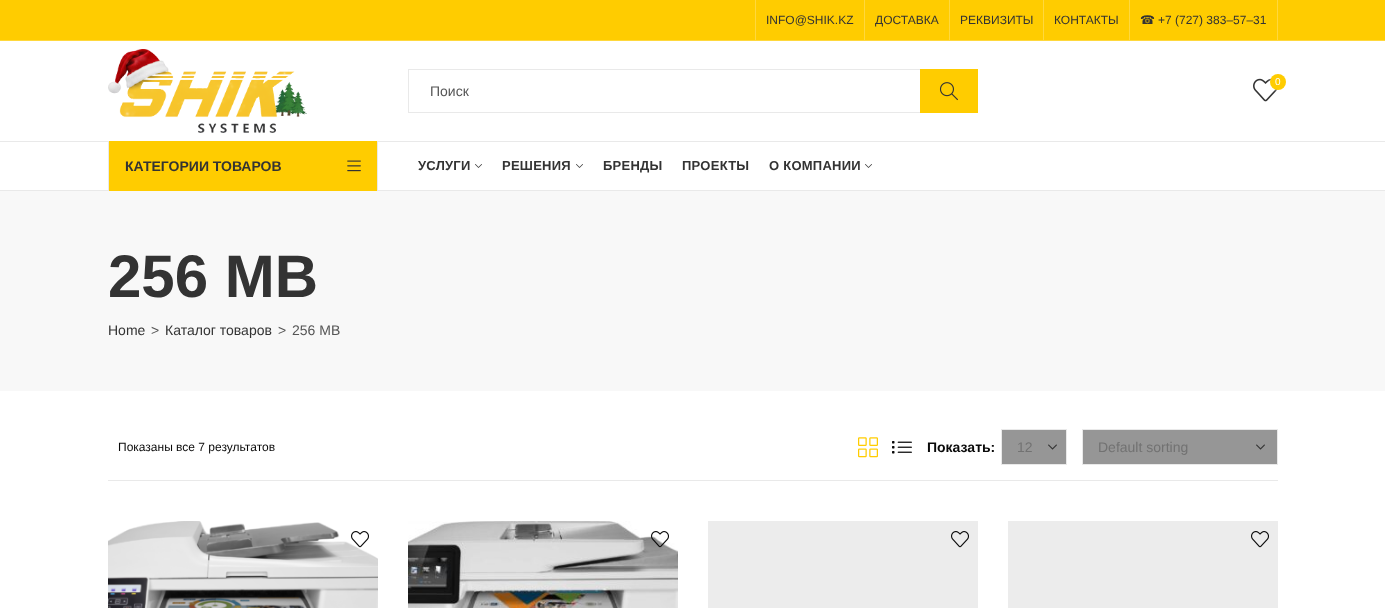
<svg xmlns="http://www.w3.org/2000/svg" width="1385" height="608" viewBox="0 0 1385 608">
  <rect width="100%" height="100%" fill="rgb(255,255,255)"/>
  <rect x="0" y="0" width="1385" height="40" fill="rgb(255,204,0)"/>
  <rect x="0" y="40" width="1385" height="1" fill="rgb(255,216,61)"/>
  <rect x="755" y="0" width="1" height="40" fill="rgb(255,216,61)"/>
  <text x="766" y="24" font-family="Liberation Sans" font-size="12" fill="rgb(51,51,51)">INFO@SHIK.KZ</text>
  <rect x="1277" y="0" width="1" height="40" fill="rgb(255,216,61)"/>
  <rect x="864" y="0" width="1" height="40" fill="rgb(255,216,61)"/>
  <text x="875" y="24" font-family="Liberation Sans" font-size="12" fill="rgb(51,51,51)">ДОСТАВКА</text>
  <rect x="949" y="0" width="1" height="40" fill="rgb(255,216,61)"/>
  <text x="960" y="24" font-family="Liberation Sans" font-size="12" fill="rgb(51,51,51)">РЕКВИЗИТЫ</text>
  <rect x="1043" y="0" width="1" height="40" fill="rgb(255,216,61)"/>
  <text x="1054" y="24" font-family="Liberation Sans" font-size="12" fill="rgb(51,51,51)">КОНТАКТЫ</text>
  <rect x="1129" y="0" width="1" height="40" fill="rgb(255,216,61)"/>
  <text x="1140" y="24" font-family="DejaVu Sans" font-size="12" fill="rgb(51,51,51)">☎</text>
  <text x="1158" y="24" font-family="Liberation Sans" font-size="12" fill="rgb(51,51,51)">+7 (727) 383‒57‒31</text>
  <image x="108" y="49" width="199" height="84" href="pic1.png"/>
  <image x="1253" y="78" width="25" height="24" href="pic2.png"/>
  <rect x="1270" y="74" width="16" height="16" rx="8" fill="rgba(255,255,255,0.7)" filter="blur(1.5px)"/>
  <circle cx="1278" cy="82" r="8" fill="rgb(255,204,0)"/>
  <text x="1275" y="85" font-family="Liberation Sans" font-size="10" fill="rgb(255,255,255)">0</text>
  <rect x="408.5" y="69.5" width="569" height="43" fill="none" stroke="rgb(233,233,233)"/>
  <text x="430" y="96" font-family="Liberation Sans" font-size="14" fill="rgb(85,85,85)">Поиск</text>
  <rect x="920" y="69" width="58" height="44" fill="rgb(255,204,0)"/>
  <image x="939" y="82" width="19" height="19" href="pic3.png"/>
  <rect x="0" y="141" width="1385" height="1" fill="rgb(233,233,233)"/>
  <rect x="0" y="190" width="1385" height="1" fill="rgb(233,233,233)"/>
  <rect x="109" y="141" width="268" height="50" fill="rgb(255,204,0)"/>
  <rect x="377" y="141" width="1" height="50" fill="rgb(233,233,233)"/>
  <rect x="108" y="141" width="1" height="50" fill="rgb(233,233,233)"/>
  <text x="125" y="171" font-family="Liberation Sans" font-size="14" font-weight="bold" fill="rgb(51,51,51)">КАТЕГОРИИ ТОВАРОВ</text>
  <image x="347" y="160" width="14" height="12" href="pic4.png"/>
  <text x="418" y="170" font-family="Liberation Sans" font-size="13" font-weight="bold" letter-spacing="0.25" fill="rgb(51,51,51)">УСЛУГИ</text>
  <image x="475" y="164" width="7" height="4" href="pic5.png"/>
  <text x="502" y="170" font-family="Liberation Sans" font-size="13" font-weight="bold" letter-spacing="0.25" fill="rgb(51,51,51)">РЕШЕНИЯ</text>
  <image x="576" y="164" width="7" height="4" href="pic5.png"/>
  <g font-family="Liberation Sans" font-size="13" font-weight="bold" letter-spacing="0.25" fill="rgb(51,51,51)">
    <text x="603" y="170">БРЕНДЫ</text>
    <text x="682" y="170">ПРОЕКТЫ</text>
    <text x="769" y="170">О КОМПАНИИ</text>
  </g>
  <image x="865" y="164" width="7" height="4" href="pic5.png"/>
  <rect x="0" y="191" width="1385" height="200" fill="rgb(248,248,248)"/>
  <text x="108" y="297" font-family="Liberation Sans" font-size="60" font-weight="bold" fill="rgb(51,51,51)">256 MB</text>
  <text x="108" y="335" font-family="Liberation Sans" font-size="14" fill="rgb(51,51,51)">Home</text>
  <text x="151" y="335" font-family="Liberation Sans" font-size="14" fill="rgb(85,85,85)">&gt;</text>
  <text x="165" y="335" font-family="Liberation Sans" font-size="14" fill="rgb(51,51,51)">Каталог товаров</text>
  <g font-family="Liberation Sans" font-size="14" fill="rgb(85,85,85)">
    <text x="278" y="335">&gt;</text>
    <text x="292" y="335">256 MB</text>
  </g>
  <rect x="108" y="480" width="1170" height="1" fill="rgb(233,233,233)"/>
  <text x="118" y="451" font-family="Liberation Sans" font-size="12" fill="rgb(10,10,10)">Показаны все 7 результатов</text>
  <image x="858" y="437" width="20" height="21" href="pic6.png"/>
  <image x="892" y="441" width="20" height="13" href="pic7.png"/>
  <text x="927" y="452" font-family="Liberation Sans" font-size="14" font-weight="bold" fill="rgb(10,10,10)">Показать:</text>
  <rect x="1002" y="430" width="64" height="34" fill="rgb(150,150,150)"/>
  <image x="1048" y="444" width="9" height="6" href="pic8.png"/>
  <rect x="1001.5" y="429.5" width="65" height="35" fill="none" stroke="rgb(233,233,233)"/>
  <text x="1017" y="452" font-family="Liberation Sans" font-size="14" fill="rgb(114,114,114)">12</text>
  <rect x="1083" y="430" width="194" height="34" fill="rgb(150,150,150)"/>
  <image x="1256" y="444" width="9" height="6" href="pic8.png"/>
  <rect x="1082.5" y="429.5" width="195" height="35" fill="none" stroke="rgb(233,233,233)"/>
  <text x="1098" y="452" font-family="Liberation Sans" font-size="14" fill="rgb(114,114,114)">Default sorting</text>
  <image x="108" y="521" width="270" height="87" href="pic9.png"/>
  <image x="351" y="531" width="18" height="17" href="pic10.png"/>
  <image x="408" y="521" width="270" height="87" href="pic11.png"/>
  <image x="651" y="531" width="18" height="17" href="pic12.png"/>
  <rect x="708" y="521" width="270" height="87" fill="rgb(236,236,236)"/>
  <image x="951" y="531" width="18" height="17" href="pic13.png"/>
  <rect x="1008" y="521" width="270" height="87" fill="rgb(236,236,236)"/>
  <image x="1251" y="531" width="18" height="17" href="pic13.png"/>
</svg>
